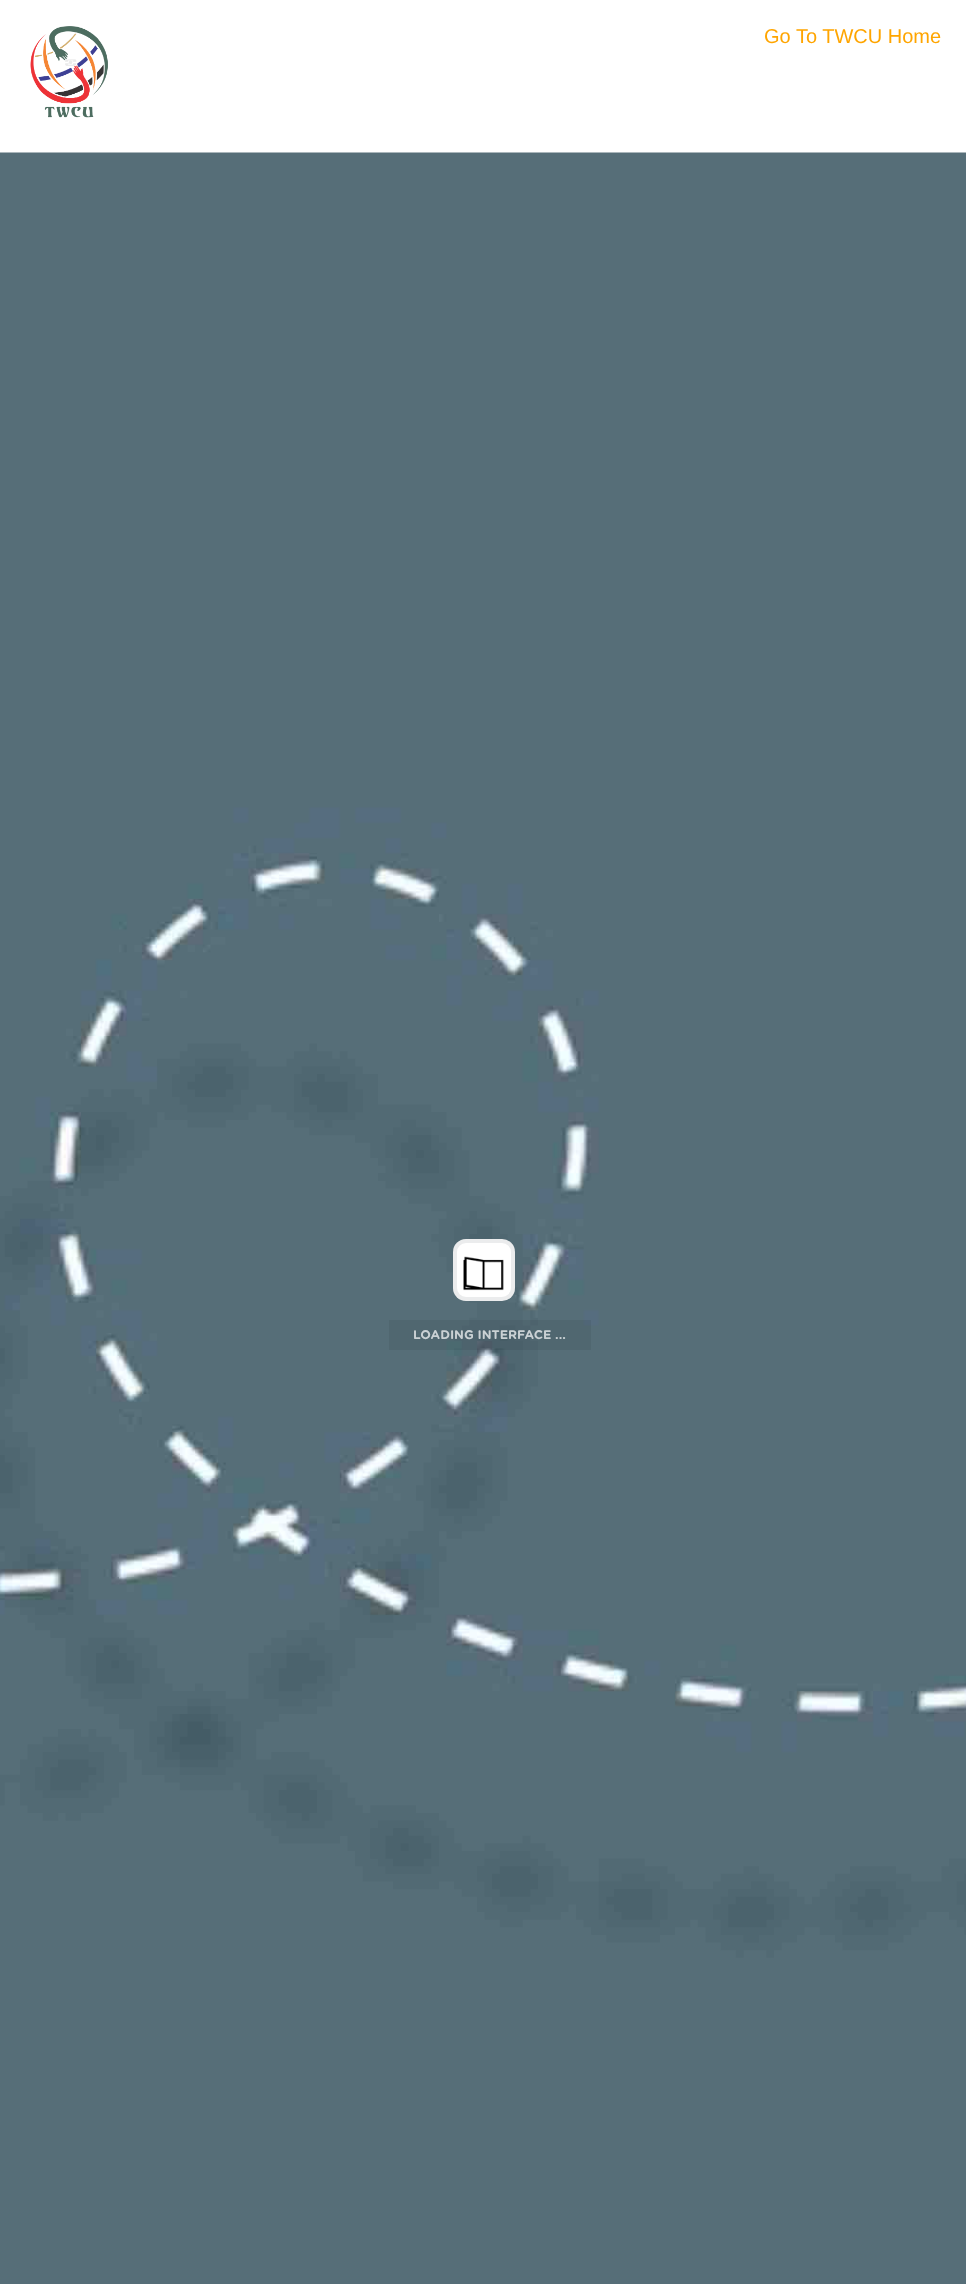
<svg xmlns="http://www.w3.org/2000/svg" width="966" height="2284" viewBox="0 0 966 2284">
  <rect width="100%" height="100%" fill="rgb(255,255,255)"/>
  <image x="30" y="26" width="78" height="92" href="pic1.png"/>
  <text x="764" y="43" font-family="Liberation Sans" font-size="20" fill="rgb(255,165,0)">Go To TWCU Home</text>
  <image x="0" y="152" width="966" height="2132" href="pic2.png"/>
  <rect x="453" y="1239" width="62" height="62" rx="13" fill="rgb(255,255,255)"/>
  <rect x="455" y="1241" width="58" height="58" rx="11" fill="none" stroke="rgba(62,71,79,0.1)" stroke-width="4"/>
  <image x="463" y="1256" width="41" height="35" href="pic3.png"/>
  <rect x="389" y="1320" width="202" height="30" fill="rgba(0,0,0,0.06)"/>
  <text x="413" y="1339" font-family="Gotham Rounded" font-size="12.5" font-weight="bold" fill="rgb(202,209,212)">LOADING INTERFACE ...</text>
</svg>
